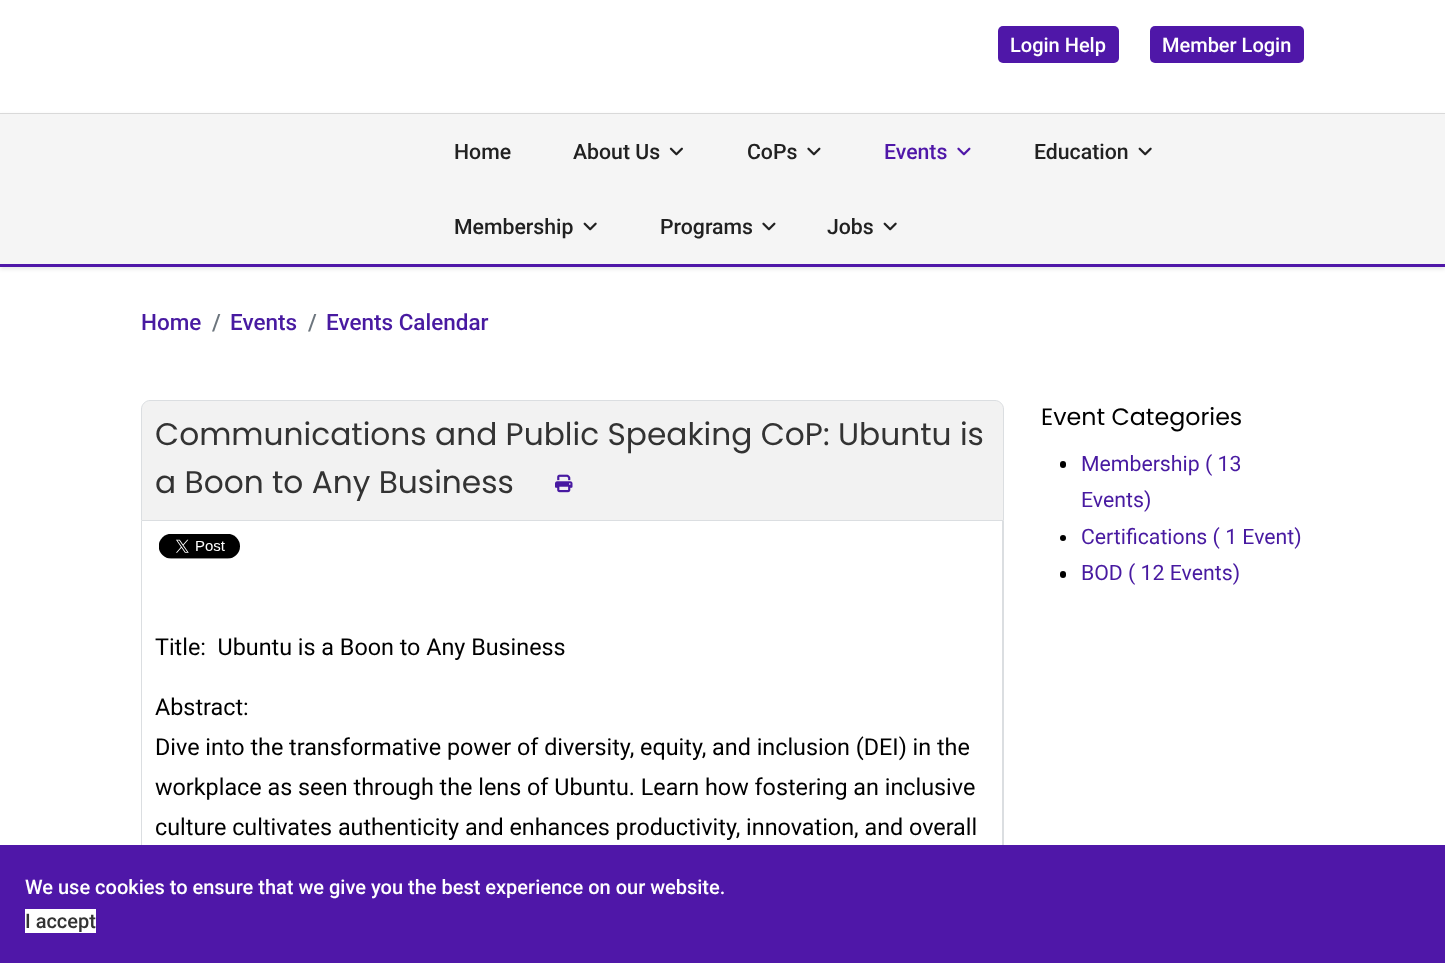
<svg xmlns="http://www.w3.org/2000/svg" width="1445" height="963" viewBox="0 0 1445 963">
  <rect width="100%" height="100%" fill="rgb(255,255,255)"/>
  <rect x="998" y="26" width="121" height="37" rx="5" fill="rgb(79,23,168)"/>
  <text x="1010" y="52" font-family="Roboto" font-size="20" font-weight="500" fill="rgb(255,255,255)">Login Help</text>
  <rect x="1150" y="26" width="154" height="37" rx="5" fill="rgb(79,23,168)"/>
  <text x="1162" y="52" font-family="Roboto" font-size="20" font-weight="500" fill="rgb(255,255,255)">Member Login</text>
  <rect x="0" y="115" width="1445" height="154" fill="rgba(0,0,0,0.1)" filter="blur(2px)"/>
  <rect x="0" y="114" width="1445" height="150" fill="rgb(245,245,245)"/>
  <rect x="0" y="113" width="1445" height="1" fill="rgb(217,217,217)"/>
  <rect x="0" y="264" width="1445" height="3" fill="rgb(79,23,168)"/>
  <g font-family="Roboto" font-size="21.25" font-weight="500" fill="rgb(33,33,33)">
    <text x="454" y="159">Home</text>
    <text x="573" y="159">About Us</text>
  </g>
  <image x="669" y="147" width="14" height="9" href="pic1.png"/>
  <text x="747" y="159" font-family="Roboto" font-size="21.25" font-weight="500" fill="rgb(33,33,33)">CoPs</text>
  <image x="807" y="147" width="14" height="9" href="pic2.png"/>
  <text x="884" y="159" font-family="Roboto" font-size="21.25" font-weight="500" fill="rgb(79,23,168)">Events</text>
  <image x="957" y="147" width="14" height="9" href="pic3.png"/>
  <text x="1034" y="159" font-family="Roboto" font-size="21.25" font-weight="500" fill="rgb(33,33,33)">Education</text>
  <image x="1138" y="147" width="14" height="9" href="pic4.png"/>
  <text x="454" y="234" font-family="Roboto" font-size="21.25" font-weight="500" fill="rgb(33,33,33)">Membership</text>
  <image x="583" y="222" width="14" height="9" href="pic4.png"/>
  <text x="660" y="234" font-family="Roboto" font-size="21.25" font-weight="500" fill="rgb(33,33,33)">Programs</text>
  <image x="762" y="222" width="14" height="9" href="pic2.png"/>
  <text x="827" y="234" font-family="Roboto" font-size="21.25" font-weight="500" fill="rgb(33,33,33)">Jobs</text>
  <image x="883" y="222" width="14" height="9" href="pic4.png"/>
  <text x="141" y="330" font-family="Roboto" font-size="22.5" font-weight="500" fill="rgb(72,26,161)">Home</text>
  <text x="212" y="330" font-family="Roboto" font-size="22.5" font-weight="500" fill="rgb(108,117,125)">/</text>
  <text x="230" y="330" font-family="Roboto" font-size="22.5" font-weight="500" fill="rgb(72,26,161)">Events</text>
  <text x="308" y="330" font-family="Roboto" font-size="22.5" font-weight="500" fill="rgb(108,117,125)">/</text>
  <text x="326" y="330" font-family="Roboto" font-size="22.5" font-weight="500" fill="rgb(72,26,161)">Events Calendar</text>
  <path d="M150 400.5H995C999.5 400.5 1003.5 404.5 1003.5 409V520.5H141.5V409C141.5 404.5 145.5 400.5 150 400.5Z" fill="rgb(242,242,242)" stroke="rgb(219,222,225)"/>
  <g font-family="Poppins" font-size="31.25" fill="rgb(51,51,51)">
    <text>
      <tspan x="155" y="445">Communications and Public Speaking CoP: Ubuntu is</tspan>
      <tspan x="155" y="493">a Boon to Any Business</tspan>
    </text>
  </g>
  <image x="555" y="474" width="18" height="19" href="pic5.png"/>
  <path d="M141 521H1004V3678C1004 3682 1000 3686 995 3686H150C145 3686 141 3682 141 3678ZM142 521H1002V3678C1002 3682 999 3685 995 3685H150C146 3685 142 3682 142 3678Z" fill="rgb(219,222,225)" fill-rule="evenodd"/>
  <image x="159" y="534" width="81" height="25" href="pic6.png"/>
  <g font-family="Roboto" font-size="23.35" fill="rgb(0,0,0)">
    <text x="155" y="655" xml:space="preserve">Title:  Ubuntu is a Boon to Any Business</text>
    <text>
      <tspan x="155" y="715">Abstract:</tspan>
      <tspan x="155" y="755">Dive into the transformative power of diversity, equity, and inclusion (DEI) in the</tspan>
      <tspan x="155" y="795">workplace as seen through the lens of Ubuntu. Learn how fostering an inclusive</tspan>
      <tspan x="155" y="835">culture cultivates authenticity and enhances productivity, innovation, and overall</tspan>
    </text>
  </g>
  <text x="1041" y="425" font-family="Poppins" font-size="23.75" fill="rgb(0,0,0)">Event Categories</text>
  <rect x="1060" y="461" width="6" height="7" rx="3" fill="rgb(0,0,0)"/>
  <g font-family="Roboto" font-size="21.25" fill="rgb(72,26,161)">
    <text>
      <tspan x="1081" y="471">Membership ( 13</tspan>
      <tspan x="1081" y="507">Events)</tspan>
    </text>
  </g>
  <circle cx="1063" cy="538" r="3" fill="rgb(0,0,0)"/>
  <text x="1081" y="544" font-family="Roboto" font-size="21.25" fill="rgb(72,26,161)">Certifications ( 1 Event)</text>
  <rect x="1060" y="571" width="6" height="7" rx="3" fill="rgb(0,0,0)"/>
  <text x="1081" y="580" font-family="Roboto" font-size="21.25" fill="rgb(72,26,161)">BOD ( 12 Events)</text>
  <rect x="0" y="845" width="1445" height="118" fill="rgb(79,23,168)"/>
  <text x="25" y="894" font-family="Roboto" font-size="20" font-weight="500" fill="rgb(255,255,255)">We use cookies to ensure that we give you the best experience on our website.</text>
  <rect x="25" y="909" width="71" height="24" fill="rgb(255,255,255)"/>
  <text x="25" y="928" font-family="Roboto" font-size="20" font-weight="500" fill="rgb(51,51,51)">I accept</text>
</svg>
